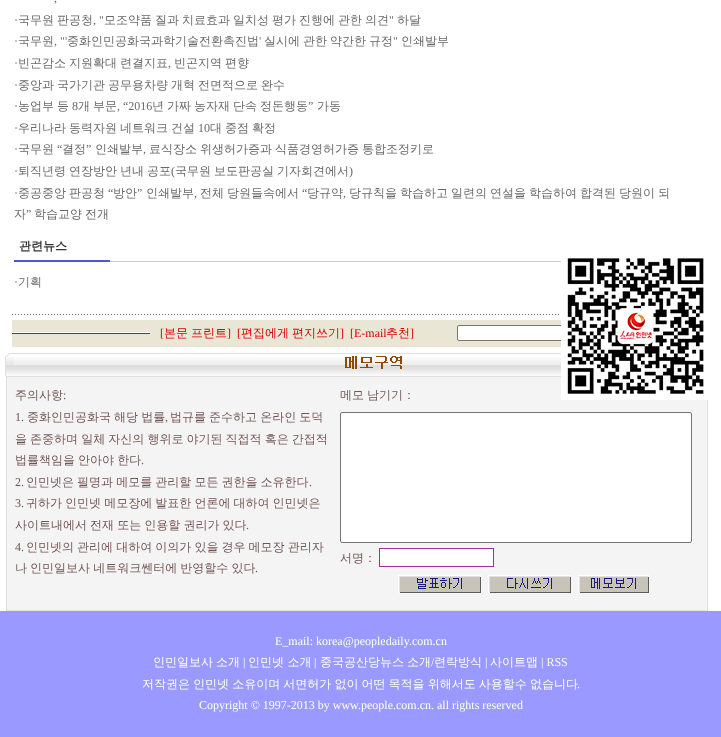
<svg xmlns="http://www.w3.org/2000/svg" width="721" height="737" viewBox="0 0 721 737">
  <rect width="100%" height="100%" fill="rgb(255,255,255)"/>
  <text x="54" y="2" font-family="Liberation Serif" font-size="12" fill="rgb(104,104,104)">,</text>
  <g font-family="WenQuanYi Zen Hei" font-size="12" font-weight="500" fill="rgb(104,104,104)">
    <text x="18" y="24">국무원</text>
    <text x="57" y="24">판공청</text>
  </g>
  <text x="93" y="24" font-family="Liberation Serif" font-size="12" fill="rgb(104,104,104)">, "</text>
  <g font-family="WenQuanYi Zen Hei" font-size="12" font-weight="500" fill="rgb(104,104,104)">
    <text x="104" y="24">모조약품</text>
    <text x="155" y="24">질과</text>
    <text x="182" y="24">치료효과</text>
    <text x="233" y="24">일치성</text>
    <text x="272" y="24">평가</text>
    <text x="299" y="24">진행에</text>
    <text x="338" y="24">관한</text>
    <text x="365" y="24">의견</text>
  </g>
  <text x="389" y="24" font-family="Liberation Serif" font-size="12" fill="rgb(104,104,104)">"</text>
  <text x="397" y="24" font-family="WenQuanYi Zen Hei" font-size="12" font-weight="500" fill="rgb(104,104,104)">하달</text>
  <text x="14" y="24" font-family="Liberation Serif" font-size="12" fill="rgb(104,104,104)">·</text>
  <text x="18" y="45" font-family="WenQuanYi Zen Hei" font-size="12" font-weight="500" fill="rgb(104,104,104)">국무원</text>
  <text x="54" y="45" font-family="Liberation Serif" font-size="12" fill="rgb(104,104,104)">, "'</text>
  <text x="67" y="45" font-family="WenQuanYi Zen Hei" font-size="12" font-weight="500" fill="rgb(104,104,104)">중화인민공화국과학기술전환촉진법</text>
  <text x="259" y="45" font-family="Liberation Serif" font-size="12" fill="rgb(104,104,104)">'</text>
  <g font-family="WenQuanYi Zen Hei" font-size="12" font-weight="500" fill="rgb(104,104,104)">
    <text x="264" y="45">실시에</text>
    <text x="303" y="45">관한</text>
    <text x="330" y="45">약간한</text>
    <text x="369" y="45">규정</text>
  </g>
  <text x="393" y="45" font-family="Liberation Serif" font-size="12" fill="rgb(104,104,104)">"</text>
  <text x="401" y="45" font-family="WenQuanYi Zen Hei" font-size="12" font-weight="500" fill="rgb(104,104,104)">인쇄발부</text>
  <g font-family="Liberation Serif" font-size="12" fill="rgb(104,104,104)">
    <text>
      <tspan x="14" y="45">·</tspan>
      <tspan x="14" y="67">·</tspan>
    </text>
  </g>
  <g font-family="WenQuanYi Zen Hei" font-size="12" font-weight="500" fill="rgb(104,104,104)">
    <text x="18" y="67">빈곤감소</text>
    <text x="69" y="67">지원확대</text>
    <text x="120" y="67">련결지표</text>
    <text x="174" y="67">빈곤지역</text>
    <text x="225" y="67">편향</text>
  </g>
  <g font-family="Liberation Serif" font-size="12" fill="rgb(104,104,104)">
    <text x="168" y="67">,</text>
    <text x="14" y="89">·</text>
  </g>
  <g font-family="WenQuanYi Zen Hei" font-size="12" font-weight="500" fill="rgb(104,104,104)">
    <text x="18" y="89">중앙과</text>
    <text x="57" y="89">국가기관</text>
    <text x="108" y="89">공무용차량</text>
    <text x="171" y="89">개혁</text>
    <text x="198" y="89">전면적으로</text>
    <text x="261" y="89">완수</text>
  </g>
  <text x="14" y="110" font-family="Liberation Serif" font-size="12" fill="rgb(104,104,104)">·</text>
  <g font-family="WenQuanYi Zen Hei" font-size="12" font-weight="500" fill="rgb(104,104,104)">
    <text x="18" y="110">농업부</text>
    <text x="57" y="110">등</text>
  </g>
  <text x="72" y="110" font-family="Liberation Serif" font-size="12" fill="rgb(104,104,104)">8</text>
  <g font-family="WenQuanYi Zen Hei" font-size="12" font-weight="500" fill="rgb(104,104,104)">
    <text x="78" y="110">개</text>
    <text x="93" y="110">부문</text>
  </g>
  <text x="117" y="110" font-family="Liberation Serif" font-size="12" fill="rgb(104,104,104)">, “2016</text>
  <g font-family="WenQuanYi Zen Hei" font-size="12" font-weight="500" fill="rgb(104,104,104)">
    <text x="152" y="110">년</text>
    <text x="167" y="110">가짜</text>
    <text x="194" y="110">농자재</text>
    <text x="233" y="110">단속</text>
    <text x="260" y="110">정돈행동</text>
  </g>
  <text x="308" y="110" font-family="Liberation Serif" font-size="12" fill="rgb(104,104,104)">”</text>
  <text x="317" y="110" font-family="WenQuanYi Zen Hei" font-size="12" font-weight="500" fill="rgb(104,104,104)">가동</text>
  <text x="14" y="132" font-family="Liberation Serif" font-size="12" fill="rgb(104,104,104)">·</text>
  <g font-family="WenQuanYi Zen Hei" font-size="12" font-weight="500" fill="rgb(104,104,104)">
    <text x="18" y="132">우리나라</text>
    <text x="69" y="132">동력자원</text>
    <text x="120" y="132">네트워크</text>
    <text x="171" y="132">건설</text>
  </g>
  <text x="198" y="132" font-family="Liberation Serif" font-size="12" fill="rgb(104,104,104)">10</text>
  <g font-family="WenQuanYi Zen Hei" font-size="12" font-weight="500" fill="rgb(104,104,104)">
    <text x="210" y="132">대</text>
    <text x="225" y="132">중점</text>
    <text x="252" y="132">확정</text>
  </g>
  <text x="14" y="153" font-family="Liberation Serif" font-size="12" fill="rgb(104,104,104)">·</text>
  <text x="18" y="153" font-family="WenQuanYi Zen Hei" font-size="12" font-weight="500" fill="rgb(104,104,104)">국무원</text>
  <text x="57" y="153" font-family="Liberation Serif" font-size="12" fill="rgb(104,104,104)">“</text>
  <text x="62" y="153" font-family="WenQuanYi Zen Hei" font-size="12" font-weight="500" fill="rgb(104,104,104)">결정</text>
  <text x="86" y="153" font-family="Liberation Serif" font-size="12" fill="rgb(104,104,104)">”</text>
  <g font-family="WenQuanYi Zen Hei" font-size="12" font-weight="500" fill="rgb(104,104,104)">
    <text x="95" y="153">인쇄발부</text>
    <text x="149" y="153">료식장소</text>
    <text x="200" y="153">위생허가증과</text>
    <text x="275" y="153">식품경영허가증</text>
    <text x="362" y="153">통합조정키로</text>
  </g>
  <g font-family="Liberation Serif" font-size="12" fill="rgb(104,104,104)">
    <text x="143" y="153">,</text>
    <text x="14" y="175">·</text>
  </g>
  <g font-family="WenQuanYi Zen Hei" font-size="12" font-weight="500" fill="rgb(104,104,104)">
    <text x="18" y="175">퇴직년령</text>
    <text x="69" y="175">연장방안</text>
    <text x="120" y="175">년내</text>
    <text x="147" y="175">공포</text>
  </g>
  <text x="171" y="175" font-family="Liberation Serif" font-size="12" fill="rgb(104,104,104)">(</text>
  <g font-family="WenQuanYi Zen Hei" font-size="12" font-weight="500" fill="rgb(104,104,104)">
    <text x="175" y="175">국무원</text>
    <text x="214" y="175">보도판공실</text>
    <text x="277" y="175">기자회견에서</text>
  </g>
  <g font-family="Liberation Serif" font-size="12" fill="rgb(104,104,104)">
    <text x="349" y="175">)</text>
    <text x="14" y="197">·</text>
  </g>
  <g font-family="WenQuanYi Zen Hei" font-size="12" font-weight="500" fill="rgb(104,104,104)">
    <text x="18" y="197">중공중앙</text>
    <text x="69" y="197">판공청</text>
  </g>
  <text x="108" y="197" font-family="Liberation Serif" font-size="12" fill="rgb(104,104,104)">“</text>
  <text x="113" y="197" font-family="WenQuanYi Zen Hei" font-size="12" font-weight="500" fill="rgb(104,104,104)">방안</text>
  <text x="137" y="197" font-family="Liberation Serif" font-size="12" fill="rgb(104,104,104)">”</text>
  <g font-family="WenQuanYi Zen Hei" font-size="12" font-weight="500" fill="rgb(104,104,104)">
    <text x="146" y="197">인쇄발부</text>
    <text x="200" y="197">전체</text>
    <text x="227" y="197">당원들속에서</text>
  </g>
  <text x="302" y="197" font-family="Liberation Serif" font-size="12" fill="rgb(104,104,104)">“</text>
  <g font-family="WenQuanYi Zen Hei" font-size="12" font-weight="500" fill="rgb(104,104,104)">
    <text x="307" y="197">당규약</text>
    <text x="349" y="197">당규칙을</text>
    <text x="400" y="197">학습하고</text>
    <text x="451" y="197">일련의</text>
    <text x="490" y="197">연설을</text>
    <text x="529" y="197">학습하여</text>
    <text x="580" y="197">합격된</text>
    <text x="619" y="197">당원이</text>
    <text x="658" y="197">되</text>
  </g>
  <g font-family="Liberation Serif" font-size="12" fill="rgb(104,104,104)">
    <text x="194" y="197">,</text>
    <text x="343" y="197">,</text>
  </g>
  <text x="14" y="218" font-family="WenQuanYi Zen Hei" font-size="12" font-weight="500" fill="rgb(104,104,104)">자</text>
  <text x="26" y="218" font-family="Liberation Serif" font-size="12" fill="rgb(104,104,104)">”</text>
  <g font-family="WenQuanYi Zen Hei" font-size="12" font-weight="500" fill="rgb(104,104,104)">
    <text x="34" y="218">학습교양</text>
    <text x="85" y="218">전개</text>
  </g>
  <image x="14" y="260" width="547" height="2" href="pic1.png"/>
  <text x="19" y="250" font-family="WenQuanYi Zen Hei" font-size="12" font-weight="bold" fill="rgb(51,51,51)">관련뉴스</text>
  <text x="14" y="286" font-family="Liberation Serif" font-size="12" fill="rgb(104,104,104)">·</text>
  <text x="18" y="286" font-family="WenQuanYi Zen Hei" font-size="12" font-weight="500" fill="rgb(104,104,104)">기획</text>
  <image x="12" y="314" width="549" height="33" href="pic2.png"/>
  <text x="160" y="337" font-family="Liberation Serif" font-size="12" fill="rgb(212,0,3)">[</text>
  <text x="164" y="337" word-spacing="-0.5" font-family="WenQuanYi Zen Hei" font-size="12" font-weight="500" fill="rgb(212,0,3)">본문 프린트</text>
  <text x="227" y="337" font-family="Liberation Serif" font-size="12" fill="rgb(212,0,3)" xml:space="preserve">]  [</text>
  <text x="241" y="337" word-spacing="-0.5" font-family="WenQuanYi Zen Hei" font-size="12" font-weight="500" fill="rgb(212,0,3)">편집에게 편지쓰기</text>
  <text x="340" y="337" font-family="Liberation Serif" font-size="12" fill="rgb(212,0,3)" xml:space="preserve">]  [E-mail</text>
  <text x="386" y="337" font-family="WenQuanYi Zen Hei" font-size="12" font-weight="500" fill="rgb(212,0,3)">추천</text>
  <text x="410" y="337" font-family="Liberation Serif" font-size="12" fill="rgb(212,0,3)">]</text>
  <rect x="457.5" y="325.5" width="116" height="15" rx="1.5" fill="rgb(255,255,255)" stroke="rgb(118,118,118)"/>
  <image x="5" y="353" width="556" height="23" href="pic3.png"/>
  <rect x="6.5" y="376.5" width="701" height="234" fill="rgb(244,244,244)" stroke="rgb(224,224,224)"/>
  <text x="15" y="399" font-family="WenQuanYi Zen Hei" font-size="12" font-weight="500" fill="rgb(115,85,85)">주의사항</text>
  <g font-family="Liberation Serif" font-size="12" fill="rgb(115,85,85)">
    <text x="63" y="399">:</text>
    <text x="15" y="421">1.</text>
  </g>
  <text x="27" y="421" word-spacing="-0.5" font-family="WenQuanYi Zen Hei" font-size="12" font-weight="500" fill="rgb(115,85,85)">중화인민공화국 해당 법률</text>
  <text x="165" y="421" font-family="Liberation Serif" font-size="12" fill="rgb(115,85,85)">,</text>
  <g font-family="WenQuanYi Zen Hei" font-size="12" font-weight="500" fill="rgb(115,85,85)">
    <text x="170" y="421" word-spacing="-0.5">법규를 준수하고 온라인 도덕</text>
    <text>
      <tspan x="15" y="443" word-spacing="-0.5">을 존중하며 일체 자신의 행위로 야기된 직접적 혹은 간접적</tspan>
      <tspan x="15" y="464" word-spacing="-0.5">법률책임을 안아야 한다</tspan>
    </text>
  </g>
  <g font-family="Liberation Serif" font-size="12" fill="rgb(115,85,85)">
    <text x="141" y="464">.</text>
    <text x="15" y="486">2.</text>
  </g>
  <text x="26" y="486" word-spacing="-0.5" font-family="WenQuanYi Zen Hei" font-size="12" font-weight="500" fill="rgb(115,85,85)">인민넷은 필명과 메모를 관리할 모든 권한을 소유한다</text>
  <g font-family="Liberation Serif" font-size="12" fill="rgb(115,85,85)">
    <text x="309" y="486">.</text>
    <text x="15" y="507">3.</text>
  </g>
  <g font-family="WenQuanYi Zen Hei" font-size="12" font-weight="500" fill="rgb(115,85,85)">
    <text x="26" y="507" word-spacing="-0.5">귀하가 인민넷 메모장에 발표한 언론에 대하여 인민넷은</text>
    <text x="15" y="529" word-spacing="-0.5">사이트내에서 전재 또는 인용할 권리가 있다</text>
  </g>
  <g font-family="Liberation Serif" font-size="12" fill="rgb(115,85,85)">
    <text x="246" y="529">.</text>
    <text x="15" y="551">4.</text>
  </g>
  <g font-family="WenQuanYi Zen Hei" font-size="12" font-weight="500" fill="rgb(115,85,85)">
    <text x="26" y="551" word-spacing="-0.5">인민넷의 관리에 대하여 이의가 있을 경우 메모장 관리자</text>
    <text x="15" y="572" word-spacing="-0.5">나 인민일보사 네트워크쎈터에 반영할수 있다</text>
  </g>
  <text x="255" y="572" font-family="Liberation Serif" font-size="12" fill="rgb(115,85,85)">.</text>
  <text x="340" y="399" word-spacing="-0.5" font-family="WenQuanYi Zen Hei" font-size="12" font-weight="500" fill="rgb(115,85,85)">메모 남기기：</text>
  <rect x="340.5" y="412.5" width="351" height="130" rx="1.5" fill="rgb(255,255,255)" stroke="rgb(118,118,118)"/>
  <text x="340" y="562" font-family="WenQuanYi Zen Hei" font-size="12" font-weight="500" fill="rgb(115,85,85)">서명：</text>
  <rect x="379.5" y="548.5" width="114" height="18" fill="rgb(255,255,255)" stroke="rgb(151,51,154)"/>
  <image x="398" y="575" width="83" height="18" href="pic4.png"/>
  <image x="488" y="575" width="83" height="18" href="pic5.png"/>
  <image x="578" y="575" width="71" height="18" href="pic6.png"/>
  <image x="561" y="258" width="148" height="142" href="pic7.png"/>
  <rect x="0" y="611" width="721" height="126" fill="rgb(153,153,255)"/>
  <text x="275" y="645" font-family="Liberation Serif" font-size="12" fill="rgb(255,255,255)">E_mail: korea@peopledaily.com.cn</text>
  <text x="153" y="666" word-spacing="-0.5" font-family="WenQuanYi Zen Hei" font-size="12" font-weight="500" fill="rgb(255,255,255)">인민일보사 소개</text>
  <text x="243" y="666" font-family="Liberation Serif" font-size="12" fill="rgb(255,255,255)">|</text>
  <text x="248" y="666" font-family="WenQuanYi Zen Hei" font-size="12" font-weight="500" fill="rgb(255,255,255)">인민넷 소개</text>
  <text x="314" y="666" font-family="Liberation Serif" font-size="12" fill="rgb(255,255,255)">|</text>
  <text x="320" y="666" word-spacing="-0.5" font-family="WenQuanYi Zen Hei" font-size="12" font-weight="500" fill="rgb(255,255,255)">중국공산당뉴스 소개</text>
  <text x="431" y="666" font-family="Liberation Serif" font-size="12" fill="rgb(255,255,255)">/</text>
  <text x="434" y="666" font-family="WenQuanYi Zen Hei" font-size="12" font-weight="500" fill="rgb(255,255,255)">련락방식</text>
  <text x="485" y="666" font-family="Liberation Serif" font-size="12" fill="rgb(255,255,255)">|</text>
  <text x="490" y="666" font-family="WenQuanYi Zen Hei" font-size="12" font-weight="500" fill="rgb(255,255,255)">사이트맵</text>
  <text x="541" y="666" font-family="Liberation Serif" font-size="12" fill="rgb(255,255,255)">| RSS</text>
  <text x="142" y="688" word-spacing="-0.5" font-family="WenQuanYi Zen Hei" font-size="12" font-weight="500" fill="rgb(255,255,255)">저작권은 인민넷 소유이며 서면허가 없이 어떤 목적을 위해서도 사용할수 없습니다</text>
  <g font-family="Liberation Serif" font-size="12" fill="rgb(255,255,255)">
    <text x="577" y="688">.</text>
    <text x="199" y="709">Copyright © 1997-2013 by www.people.com.cn. all rights reserved</text>
  </g>
</svg>
